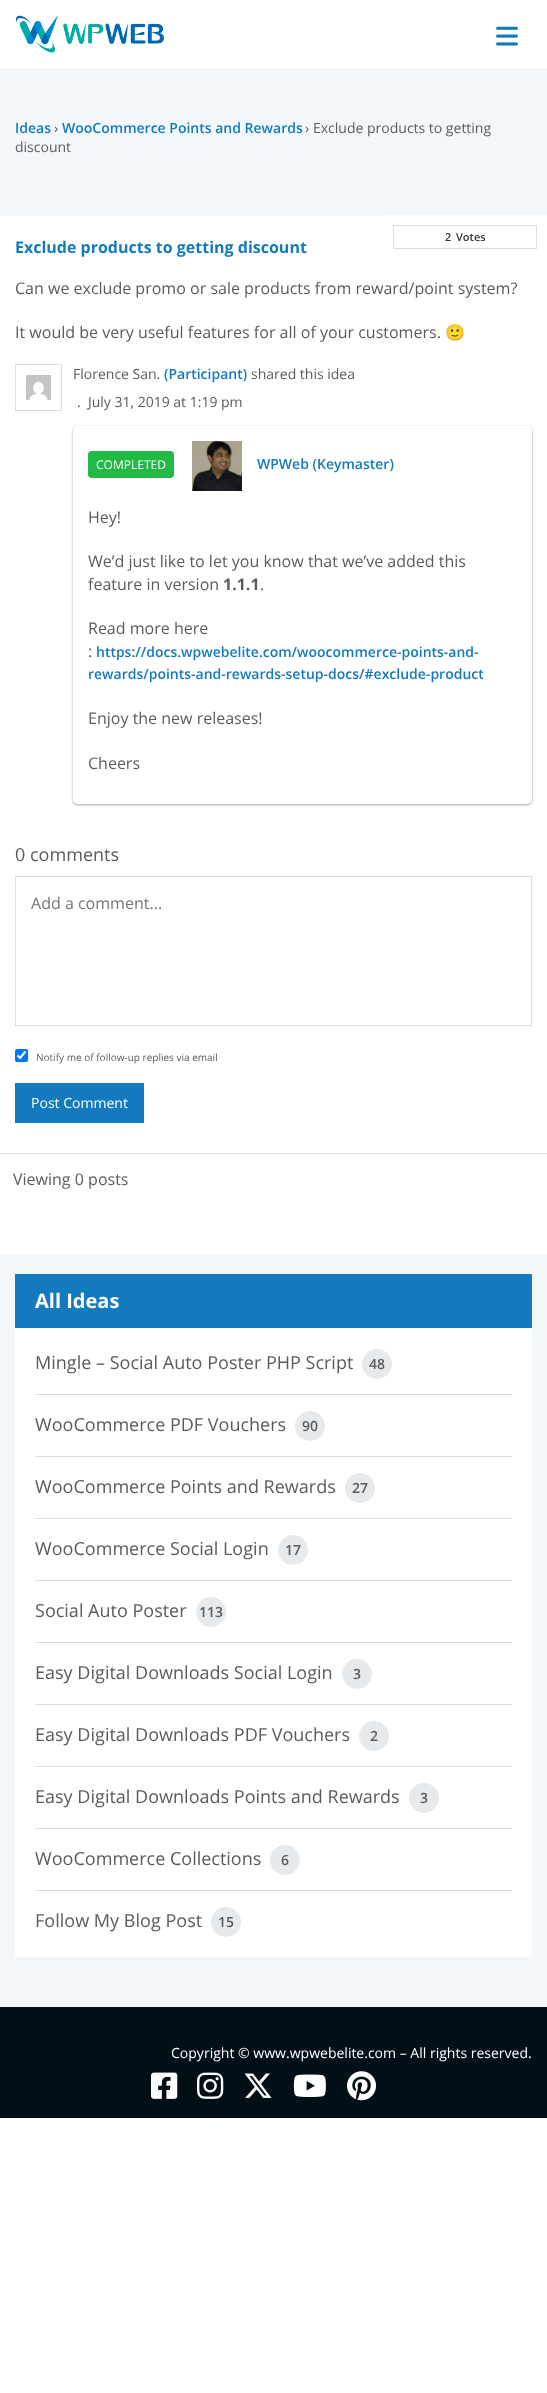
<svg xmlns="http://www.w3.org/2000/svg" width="547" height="2393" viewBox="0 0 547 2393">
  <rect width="100%" height="100%" fill="rgb(255,255,255)"/>
  <image x="16" y="15" width="148" height="38" href="pic1.png"/>
  <image x="496" y="26" width="22" height="20" href="pic2.png"/>
  <rect x="0" y="68" width="547" height="1939" fill="rgb(243,247,250)"/>
  <text x="15" y="133" font-family="Open Sans" font-size="14" font-weight="600" fill="rgb(19,123,189)">Ideas</text>
  <text x="54" y="133" font-family="Open Sans" font-size="14" fill="rgb(91,91,91)">›</text>
  <text x="62" y="133" font-family="Open Sans" font-size="14" font-weight="600" fill="rgb(19,123,189)">WooCommerce Points and Rewards</text>
  <g font-family="Open Sans" font-size="14" fill="rgb(91,91,91)">
    <text x="305" y="133">›</text>
    <text x="313" y="133">Exclude products to getting</text>
    <text x="15" y="152">discount</text>
  </g>
  <rect x="383" y="215" width="164" height="1" fill="rgb(255,255,255)"/>
  <rect x="0" y="216" width="547" height="937" fill="rgb(255,255,255)"/>
  <rect x="393.5" y="225.5" width="143" height="23" fill="none" stroke="rgb(221,221,221)"/>
  <g font-family="Open Sans" font-size="11" font-weight="600" fill="rgb(51,51,51)">
    <text x="445" y="241">2</text>
    <text x="456" y="241">Votes</text>
  </g>
  <text x="15" y="253" font-family="Open Sans" font-size="16" font-weight="bold" fill="rgb(19,123,189)">Exclude products to getting discount</text>
  <g font-family="Open Sans" font-size="16" fill="rgb(91,91,91)">
    <text x="15" y="294">Can we exclude promo or sale products from reward/point system?</text>
    <text x="15" y="338">It would be very useful features for all of your customers.</text>
  </g>
  <text x="445" y="338" font-family="Noto Color Emoji" font-size="16" fill="rgb(91,91,91)">🙂</text>
  <rect x="15.5" y="364.5" width="46" height="46" fill="none" stroke="rgb(221,221,221)"/>
  <image x="26" y="375" width="25" height="25" href="pic3.png"/>
  <text x="73" y="379" font-family="Open Sans" font-size="14" fill="rgb(91,91,91)">Florence San.</text>
  <text x="164" y="379" font-family="Open Sans" font-size="14" font-weight="600" fill="rgb(19,123,189)">(Participant)</text>
  <g font-family="Open Sans" font-size="14" fill="rgb(91,91,91)">
    <text x="251" y="379">shared this idea</text>
    <text x="77" y="407">.</text>
    <text x="88" y="407">July 31, 2019 at 1:19 pm</text>
  </g>
  <rect x="73" y="427" width="459" height="378" rx="5" fill="rgba(0,0,0,0.24)" filter="blur(1px)"/>
  <rect x="73" y="427" width="459" height="378" rx="5" fill="rgba(0,0,0,0.12)" filter="blur(1.5px)"/>
  <rect x="73" y="426" width="459" height="378" rx="5" fill="rgb(255,255,255)"/>
  <rect x="88" y="451" width="86" height="27" rx="4" fill="rgb(33,186,69)"/>
  <text x="96" y="469" font-family="Open Sans" font-size="12" fill="rgb(255,255,255)">COMPLETED</text>
  <image x="192" y="441" width="50" height="50" href="pic4.png"/>
  <text x="257" y="469" font-family="Open Sans" font-size="14" font-weight="600" fill="rgb(19,123,189)">WPWeb (Keymaster)</text>
  <g font-family="Open Sans" font-size="16" fill="rgb(91,91,91)">
    <text x="88" y="523">Hey!</text>
    <text>
      <tspan x="88" y="567">We’d just like to let you know that we’ve added this</tspan>
      <tspan x="88" y="590">feature in version</tspan>
    </text>
  </g>
  <text x="223" y="590" font-family="Open Sans" font-size="16" font-weight="bold" fill="rgb(91,91,91)">1.1.1</text>
  <g font-family="Open Sans" font-size="16" fill="rgb(91,91,91)">
    <text x="260" y="590">.</text>
    <text>
      <tspan x="88" y="634">Read more here</tspan>
      <tspan x="88" y="657">:</tspan>
    </text>
  </g>
  <g font-family="Open Sans" font-size="14" font-weight="600" fill="rgb(19,123,189)">
    <text x="96" y="657">https://docs.wpwebelite.com/woocommerce-points-and-</text>
    <text x="88" y="679">rewards/points-and-rewards-setup-docs/#exclude-product</text>
  </g>
  <g font-family="Open Sans" font-size="16" fill="rgb(91,91,91)">
    <text x="88" y="724">Enjoy the new releases!</text>
    <text x="88" y="769">Cheers</text>
  </g>
  <text x="15" y="861" font-family="Open Sans" font-size="18" fill="rgb(91,91,91)">0 comments</text>
  <rect x="15.5" y="876.5" width="516" height="149" fill="none" stroke="rgb(221,221,221)"/>
  <text x="31" y="909" font-family="Open Sans" font-size="16" fill="rgb(117,117,117)">Add a comment...</text>
  <rect x="15" y="1049" width="13" height="13" rx="2" fill="rgb(0,117,255)"/>
  <path d="M17.5 1055.5L20 1058L25.5 1051.5" fill="none" stroke="rgb(255,255,255)" stroke-width="2.1"/>
  <text x="36" y="1061" font-family="Open Sans" font-size="10" fill="rgb(91,91,91)">Notify me of follow-up replies via email</text>
  <rect x="15" y="1083" width="129" height="40" fill="rgb(19,123,189)"/>
  <text x="31" y="1108" font-family="Open Sans" font-size="14" fill="rgb(255,255,255)">Post Comment</text>
  <rect x="0" y="1154" width="547" height="100" fill="rgb(255,255,255)"/>
  <rect x="0" y="1153" width="547" height="1" fill="rgb(221,221,221)"/>
  <text x="13" y="1185" font-family="Open Sans" font-size="16" fill="rgb(91,91,91)">Viewing 0 posts</text>
  <rect x="15" y="1328" width="517" height="629" fill="rgb(255,255,255)"/>
  <rect x="15" y="1274" width="517" height="54" fill="rgb(19,123,189)"/>
  <text x="35" y="1308" font-family="Open Sans" font-size="20" font-weight="bold" fill="rgb(255,255,255)">All Ideas</text>
  <rect x="35" y="1394" width="477" height="1" fill="rgb(221,221,221)"/>
  <text x="35" y="1369" font-family="Open Sans" font-size="18" fill="rgb(91,91,91)">Mingle – Social Auto Poster PHP Script</text>
  <circle cx="377" cy="1364" r="15" fill="rgb(230,234,237)"/>
  <text x="369" y="1369" font-family="Open Sans" font-size="14" font-weight="600" fill="rgb(91,91,91)">48</text>
  <rect x="35" y="1456" width="477" height="1" fill="rgb(221,221,221)"/>
  <text x="35" y="1431" font-family="Open Sans" font-size="18" fill="rgb(91,91,91)">WooCommerce PDF Vouchers</text>
  <circle cx="310" cy="1426" r="15" fill="rgb(230,234,237)"/>
  <text x="302" y="1431" font-family="Open Sans" font-size="14" font-weight="600" fill="rgb(91,91,91)">90</text>
  <rect x="35" y="1518" width="477" height="1" fill="rgb(221,221,221)"/>
  <text x="35" y="1493" font-family="Open Sans" font-size="18" fill="rgb(91,91,91)">WooCommerce Points and Rewards</text>
  <circle cx="360" cy="1488" r="15" fill="rgb(230,234,237)"/>
  <text x="352" y="1493" font-family="Open Sans" font-size="14" font-weight="600" fill="rgb(91,91,91)">27</text>
  <rect x="35" y="1580" width="477" height="1" fill="rgb(221,221,221)"/>
  <text x="35" y="1555" font-family="Open Sans" font-size="18" fill="rgb(91,91,91)">WooCommerce Social Login</text>
  <circle cx="293" cy="1550" r="15" fill="rgb(230,234,237)"/>
  <text x="285" y="1555" font-family="Open Sans" font-size="14" font-weight="600" fill="rgb(91,91,91)">17</text>
  <rect x="35" y="1642" width="477" height="1" fill="rgb(221,221,221)"/>
  <text x="35" y="1617" font-family="Open Sans" font-size="18" fill="rgb(91,91,91)">Social Auto Poster</text>
  <circle cx="211" cy="1612" r="15" fill="rgb(230,234,237)"/>
  <text x="199" y="1617" font-family="Open Sans" font-size="14" font-weight="600" fill="rgb(91,91,91)">113</text>
  <rect x="35" y="1704" width="477" height="1" fill="rgb(221,221,221)"/>
  <text x="35" y="1679" font-family="Open Sans" font-size="18" fill="rgb(91,91,91)">Easy Digital Downloads Social Login</text>
  <circle cx="357" cy="1674" r="15" fill="rgb(230,234,237)"/>
  <text x="353" y="1679" font-family="Open Sans" font-size="14" font-weight="600" fill="rgb(91,91,91)">3</text>
  <rect x="35" y="1766" width="477" height="1" fill="rgb(221,221,221)"/>
  <text x="35" y="1741" font-family="Open Sans" font-size="18" fill="rgb(91,91,91)">Easy Digital Downloads PDF Vouchers</text>
  <circle cx="374" cy="1736" r="15" fill="rgb(230,234,237)"/>
  <text x="370" y="1741" font-family="Open Sans" font-size="14" font-weight="600" fill="rgb(91,91,91)">2</text>
  <rect x="35" y="1828" width="477" height="1" fill="rgb(221,221,221)"/>
  <text x="35" y="1803" font-family="Open Sans" font-size="18" fill="rgb(91,91,91)">Easy Digital Downloads Points and Rewards</text>
  <circle cx="424" cy="1798" r="15" fill="rgb(230,234,237)"/>
  <text x="420" y="1803" font-family="Open Sans" font-size="14" font-weight="600" fill="rgb(91,91,91)">3</text>
  <rect x="35" y="1890" width="477" height="1" fill="rgb(221,221,221)"/>
  <text x="35" y="1865" font-family="Open Sans" font-size="18" fill="rgb(91,91,91)">WooCommerce Collections</text>
  <circle cx="285" cy="1860" r="15" fill="rgb(230,234,237)"/>
  <text x="281" y="1865" font-family="Open Sans" font-size="14" font-weight="600" fill="rgb(91,91,91)">6</text>
  <text x="35" y="1927" font-family="Open Sans" font-size="18" fill="rgb(91,91,91)">Follow My Blog Post</text>
  <circle cx="226" cy="1922" r="15" fill="rgb(230,234,237)"/>
  <text x="218" y="1927" font-family="Open Sans" font-size="14" font-weight="600" fill="rgb(91,91,91)">15</text>
  <rect x="0" y="2007" width="547" height="111" fill="rgb(2,15,23)"/>
  <text x="171" y="2058" font-family="Open Sans" font-size="14" fill="rgb(255,255,255)">Copyright © www.wpwebelite.com – All rights reserved.</text>
  <image x="151" y="2072" width="27" height="27" href="pic5.png"/>
  <image x="197" y="2072" width="27" height="27" href="pic6.png"/>
  <image x="244" y="2073" width="28" height="25" href="pic7.png"/>
  <image x="293" y="2074" width="33" height="23" href="pic8.png"/>
  <image x="347" y="2071" width="30" height="30" href="pic9.png"/>
</svg>
